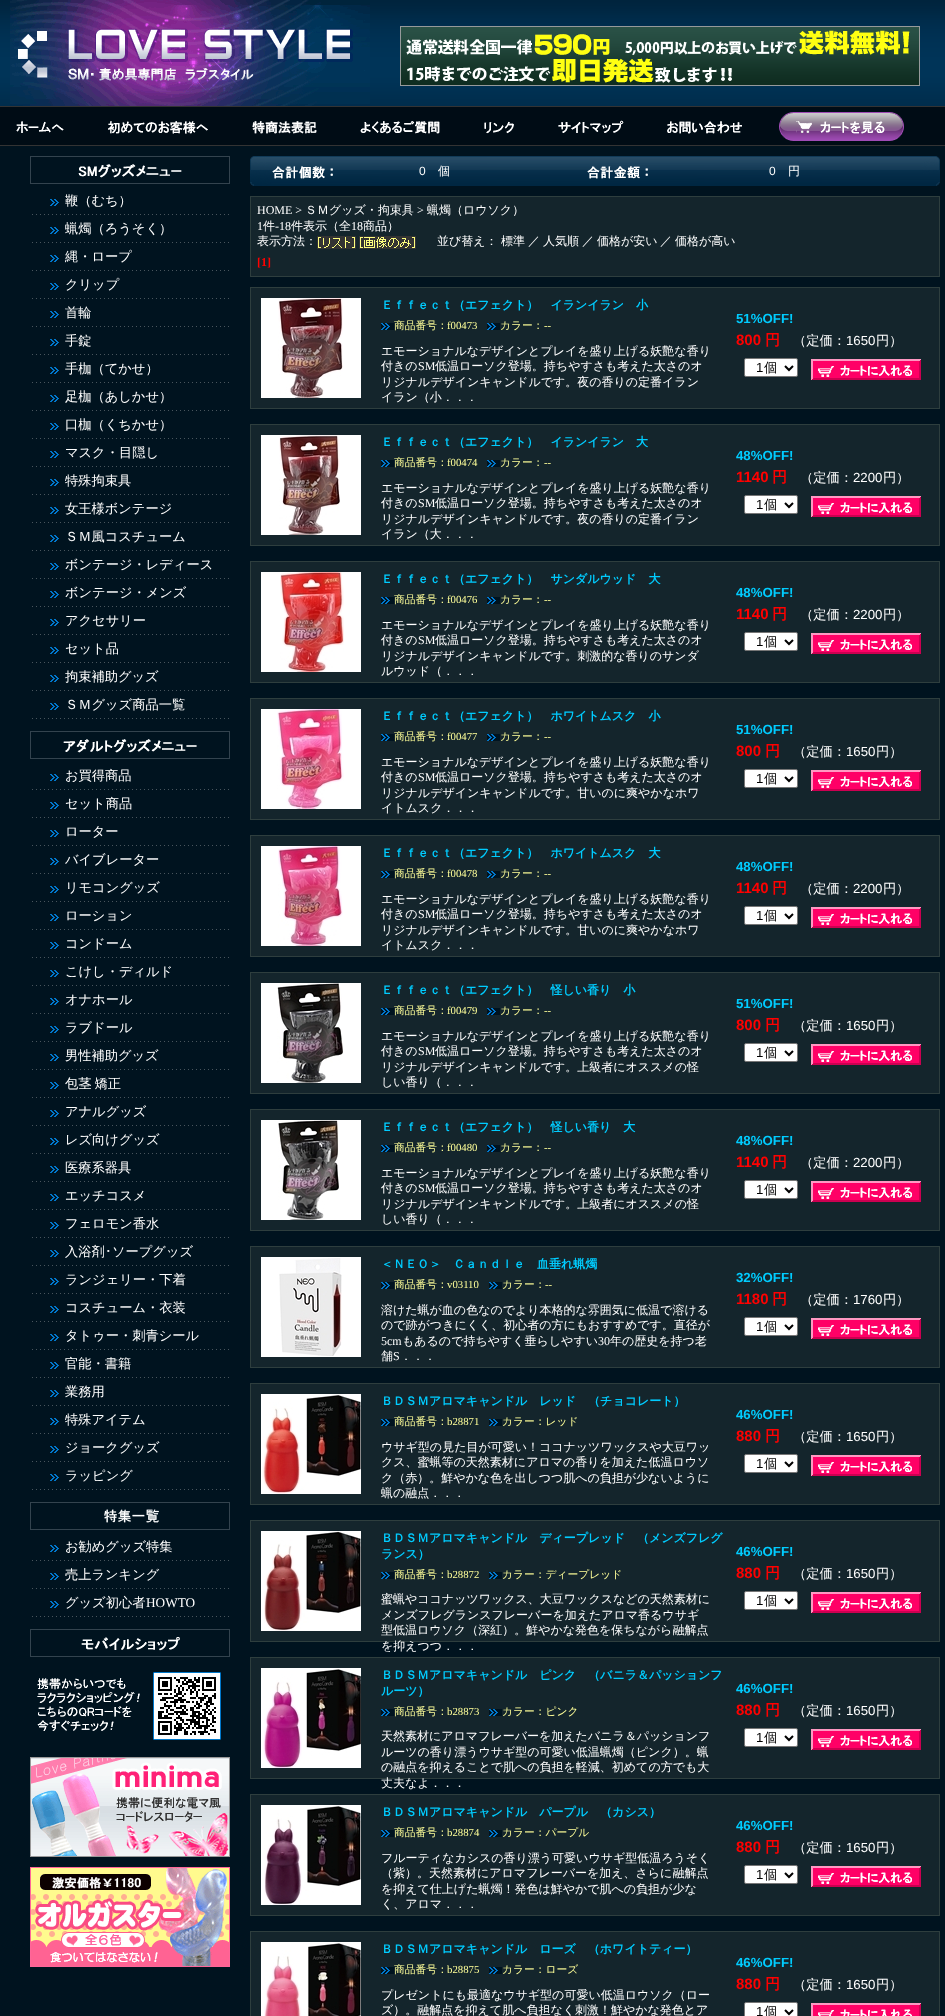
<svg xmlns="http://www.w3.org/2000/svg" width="945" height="2016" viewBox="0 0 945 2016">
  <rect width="100%" height="100%" fill="rgb(0,19,31)"/>
  <image x="0" y="0" width="945" height="146" href="pic1.png"/>
  <image x="10" y="0" width="360" height="106" href="pic2.png"/>
  <image x="400" y="26" width="520" height="60" href="pic3.png"/>
  <image x="16" y="121" width="48" height="12" href="pic4.png"/>
  <image x="108" y="121" width="100" height="13" href="pic5.png"/>
  <image x="252" y="121" width="65" height="13" href="pic6.png"/>
  <image x="360" y="121" width="80" height="13" href="pic7.png"/>
  <image x="484" y="121" width="30" height="13" href="pic8.png"/>
  <image x="558" y="120" width="66" height="13" href="pic9.png"/>
  <image x="667" y="121" width="75" height="13" href="pic10.png"/>
  <image x="779" y="112" width="125" height="29" href="pic11.png"/>
  <image x="30" y="156" width="200" height="28" href="pic12.png"/>
  <image x="32" y="199" width="197" height="16" href="pic13.png"/>
  <text x="65" y="205" font-family="WenQuanYi Zen Hei" font-size="13.25" font-weight="500" fill="rgb(255,255,255)">鞭（むち）</text>
  <image x="32" y="227" width="197" height="16" href="pic13.png"/>
  <text x="65" y="233" font-family="WenQuanYi Zen Hei" font-size="13.25" font-weight="500" fill="rgb(255,255,255)">蝋燭（ろうそく）</text>
  <image x="32" y="255" width="197" height="16" href="pic13.png"/>
  <text x="65" y="261" font-family="WenQuanYi Zen Hei" font-size="13.25" font-weight="500" fill="rgb(255,255,255)">縄・ロープ</text>
  <image x="32" y="283" width="197" height="16" href="pic13.png"/>
  <text x="65" y="289" font-family="WenQuanYi Zen Hei" font-size="13.25" font-weight="500" fill="rgb(255,255,255)">クリップ</text>
  <image x="32" y="311" width="197" height="16" href="pic13.png"/>
  <text x="65" y="317" font-family="WenQuanYi Zen Hei" font-size="13.25" font-weight="500" fill="rgb(255,255,255)">首輪</text>
  <image x="32" y="339" width="197" height="16" href="pic13.png"/>
  <text x="65" y="345" font-family="WenQuanYi Zen Hei" font-size="13.25" font-weight="500" fill="rgb(255,255,255)">手錠</text>
  <image x="32" y="367" width="197" height="16" href="pic13.png"/>
  <text x="65" y="373" font-family="WenQuanYi Zen Hei" font-size="13.25" font-weight="500" fill="rgb(255,255,255)">手枷（てかせ）</text>
  <image x="32" y="395" width="197" height="16" href="pic13.png"/>
  <text x="65" y="401" font-family="WenQuanYi Zen Hei" font-size="13.25" font-weight="500" fill="rgb(255,255,255)">足枷（あしかせ）</text>
  <image x="32" y="423" width="197" height="16" href="pic13.png"/>
  <text x="65" y="429" font-family="WenQuanYi Zen Hei" font-size="13.25" font-weight="500" fill="rgb(255,255,255)">口枷（くちかせ）</text>
  <image x="32" y="451" width="197" height="16" href="pic13.png"/>
  <text x="65" y="457" font-family="WenQuanYi Zen Hei" font-size="13.25" font-weight="500" fill="rgb(255,255,255)">マスク・目隠し</text>
  <image x="32" y="479" width="197" height="16" href="pic13.png"/>
  <text x="65" y="485" font-family="WenQuanYi Zen Hei" font-size="13.25" font-weight="500" fill="rgb(255,255,255)">特殊拘束具</text>
  <image x="32" y="507" width="197" height="16" href="pic13.png"/>
  <text x="65" y="513" font-family="WenQuanYi Zen Hei" font-size="13.25" font-weight="500" fill="rgb(255,255,255)">女王様ボンテージ</text>
  <image x="32" y="535" width="197" height="16" href="pic13.png"/>
  <text x="65" y="541" font-family="WenQuanYi Zen Hei" font-size="13.25" font-weight="500" fill="rgb(255,255,255)">ＳＭ風コスチューム</text>
  <image x="32" y="563" width="197" height="16" href="pic13.png"/>
  <text x="65" y="569" font-family="WenQuanYi Zen Hei" font-size="13.25" font-weight="500" fill="rgb(255,255,255)">ボンテージ・レディース</text>
  <image x="32" y="591" width="197" height="16" href="pic13.png"/>
  <text x="65" y="597" font-family="WenQuanYi Zen Hei" font-size="13.25" font-weight="500" fill="rgb(255,255,255)">ボンテージ・メンズ</text>
  <image x="32" y="619" width="197" height="16" href="pic13.png"/>
  <text x="65" y="625" font-family="WenQuanYi Zen Hei" font-size="13.25" font-weight="500" fill="rgb(255,255,255)">アクセサリー</text>
  <image x="32" y="647" width="197" height="16" href="pic13.png"/>
  <text x="65" y="653" font-family="WenQuanYi Zen Hei" font-size="13.25" font-weight="500" fill="rgb(255,255,255)">セット品</text>
  <image x="32" y="675" width="197" height="16" href="pic13.png"/>
  <text x="65" y="681" font-family="WenQuanYi Zen Hei" font-size="13.25" font-weight="500" fill="rgb(255,255,255)">拘束補助グッズ</text>
  <image x="32" y="703" width="197" height="16" href="pic13.png"/>
  <text x="65" y="709" font-family="WenQuanYi Zen Hei" font-size="13.25" font-weight="500" fill="rgb(255,255,255)">ＳＭグッズ商品一覧</text>
  <image x="30" y="731" width="200" height="28" href="pic14.png"/>
  <image x="32" y="774" width="197" height="16" href="pic13.png"/>
  <text x="65" y="780" font-family="WenQuanYi Zen Hei" font-size="13.25" font-weight="500" fill="rgb(255,255,255)">お買得商品</text>
  <image x="32" y="802" width="197" height="16" href="pic13.png"/>
  <text x="65" y="808" font-family="WenQuanYi Zen Hei" font-size="13.25" font-weight="500" fill="rgb(255,255,255)">セット商品</text>
  <image x="32" y="830" width="197" height="16" href="pic13.png"/>
  <text x="65" y="836" font-family="WenQuanYi Zen Hei" font-size="13.25" font-weight="500" fill="rgb(255,255,255)">ローター</text>
  <image x="32" y="858" width="197" height="16" href="pic13.png"/>
  <text x="65" y="864" font-family="WenQuanYi Zen Hei" font-size="13.25" font-weight="500" fill="rgb(255,255,255)">バイブレーター</text>
  <image x="32" y="886" width="197" height="16" href="pic13.png"/>
  <text x="65" y="892" font-family="WenQuanYi Zen Hei" font-size="13.25" font-weight="500" fill="rgb(255,255,255)">リモコングッズ</text>
  <image x="32" y="914" width="197" height="16" href="pic13.png"/>
  <text x="65" y="920" font-family="WenQuanYi Zen Hei" font-size="13.25" font-weight="500" fill="rgb(255,255,255)">ローション</text>
  <image x="32" y="942" width="197" height="16" href="pic13.png"/>
  <text x="65" y="948" font-family="WenQuanYi Zen Hei" font-size="13.25" font-weight="500" fill="rgb(255,255,255)">コンドーム</text>
  <image x="32" y="970" width="197" height="16" href="pic13.png"/>
  <text x="65" y="976" font-family="WenQuanYi Zen Hei" font-size="13.25" font-weight="500" fill="rgb(255,255,255)">こけし・ディルド</text>
  <image x="32" y="998" width="197" height="16" href="pic13.png"/>
  <text x="65" y="1004" font-family="WenQuanYi Zen Hei" font-size="13.25" font-weight="500" fill="rgb(255,255,255)">オナホール</text>
  <image x="32" y="1026" width="197" height="16" href="pic13.png"/>
  <text x="65" y="1032" font-family="WenQuanYi Zen Hei" font-size="13.25" font-weight="500" fill="rgb(255,255,255)">ラブドール</text>
  <image x="32" y="1054" width="197" height="16" href="pic13.png"/>
  <text x="65" y="1060" font-family="WenQuanYi Zen Hei" font-size="13.25" font-weight="500" fill="rgb(255,255,255)">男性補助グッズ</text>
  <image x="32" y="1082" width="197" height="16" href="pic13.png"/>
  <text x="65" y="1088" word-spacing="-1" font-family="WenQuanYi Zen Hei" font-size="13.25" font-weight="500" fill="rgb(255,255,255)">包茎 矯正</text>
  <image x="32" y="1110" width="197" height="16" href="pic13.png"/>
  <text x="65" y="1116" font-family="WenQuanYi Zen Hei" font-size="13.25" font-weight="500" fill="rgb(255,255,255)">アナルグッズ</text>
  <image x="32" y="1138" width="197" height="16" href="pic13.png"/>
  <text x="65" y="1144" font-family="WenQuanYi Zen Hei" font-size="13.25" font-weight="500" fill="rgb(255,255,255)">レズ向けグッズ</text>
  <image x="32" y="1166" width="197" height="16" href="pic13.png"/>
  <text x="65" y="1172" font-family="WenQuanYi Zen Hei" font-size="13.25" font-weight="500" fill="rgb(255,255,255)">医療系器具</text>
  <image x="32" y="1194" width="197" height="16" href="pic13.png"/>
  <text x="65" y="1200" font-family="WenQuanYi Zen Hei" font-size="13.25" font-weight="500" fill="rgb(255,255,255)">エッチコスメ</text>
  <image x="32" y="1222" width="197" height="16" href="pic13.png"/>
  <text x="65" y="1228" font-family="WenQuanYi Zen Hei" font-size="13.25" font-weight="500" fill="rgb(255,255,255)">フェロモン香水</text>
  <image x="32" y="1250" width="197" height="16" href="pic13.png"/>
  <text x="65" y="1256" font-family="WenQuanYi Zen Hei" font-size="13.25" font-weight="500" fill="rgb(255,255,255)">入浴剤</text>
  <text x="105" y="1256" font-family="IPAGothic" font-size="13.25" fill="rgb(255,255,255)">･</text>
  <text x="112" y="1256" font-family="WenQuanYi Zen Hei" font-size="13.25" font-weight="500" fill="rgb(255,255,255)">ソープグッズ</text>
  <image x="32" y="1278" width="197" height="16" href="pic13.png"/>
  <text x="65" y="1284" font-family="WenQuanYi Zen Hei" font-size="13.25" font-weight="500" fill="rgb(255,255,255)">ランジェリー・下着</text>
  <image x="32" y="1306" width="197" height="16" href="pic13.png"/>
  <text x="65" y="1312" font-family="WenQuanYi Zen Hei" font-size="13.25" font-weight="500" fill="rgb(255,255,255)">コスチューム・衣装</text>
  <image x="32" y="1334" width="197" height="16" href="pic13.png"/>
  <text x="65" y="1340" font-family="WenQuanYi Zen Hei" font-size="13.25" font-weight="500" fill="rgb(255,255,255)">タトゥー・刺青シール</text>
  <image x="32" y="1362" width="197" height="16" href="pic13.png"/>
  <text x="65" y="1368" font-family="WenQuanYi Zen Hei" font-size="13.25" font-weight="500" fill="rgb(255,255,255)">官能・書籍</text>
  <image x="32" y="1390" width="197" height="16" href="pic13.png"/>
  <text x="65" y="1396" font-family="WenQuanYi Zen Hei" font-size="13.25" font-weight="500" fill="rgb(255,255,255)">業務用</text>
  <image x="32" y="1418" width="197" height="16" href="pic13.png"/>
  <text x="65" y="1424" font-family="WenQuanYi Zen Hei" font-size="13.25" font-weight="500" fill="rgb(255,255,255)">特殊アイテム</text>
  <image x="32" y="1446" width="197" height="16" href="pic13.png"/>
  <text x="65" y="1452" font-family="WenQuanYi Zen Hei" font-size="13.25" font-weight="500" fill="rgb(255,255,255)">ジョークグッズ</text>
  <image x="32" y="1474" width="197" height="16" href="pic13.png"/>
  <text x="65" y="1480" font-family="WenQuanYi Zen Hei" font-size="13.25" font-weight="500" fill="rgb(255,255,255)">ラッピング</text>
  <image x="30" y="1502" width="200" height="28" href="pic15.png"/>
  <image x="32" y="1545" width="197" height="16" href="pic13.png"/>
  <text x="65" y="1551" font-family="WenQuanYi Zen Hei" font-size="13.25" font-weight="500" fill="rgb(255,255,255)">お勧めグッズ特集</text>
  <image x="32" y="1573" width="197" height="16" href="pic13.png"/>
  <text x="65" y="1579" font-family="WenQuanYi Zen Hei" font-size="13.25" font-weight="500" fill="rgb(255,255,255)">売上ランキング</text>
  <image x="32" y="1601" width="197" height="16" href="pic13.png"/>
  <text x="65" y="1607" font-family="WenQuanYi Zen Hei" font-size="13.25" font-weight="500" fill="rgb(255,255,255)">グッズ初心者</text>
  <text x="146" y="1607" font-family="Liberation Serif" font-size="13.25" fill="rgb(255,255,255)">HOWTO</text>
  <image x="30" y="1629" width="200" height="111" href="pic16.png"/>
  <image x="30" y="1757" width="200" height="100" href="pic17.png"/>
  <image x="30" y="1867" width="200" height="100" href="pic18.png"/>
  <image x="250" y="156" width="690" height="30" href="pic19.png"/>
  <text x="419" y="175" font-family="Liberation Sans" font-size="12" fill="rgb(255,255,255)">0</text>
  <text x="438" y="175" font-family="WenQuanYi Zen Hei" font-size="12" font-weight="500" fill="rgb(255,255,255)">個</text>
  <text x="769" y="175" font-family="Liberation Sans" font-size="12" fill="rgb(255,255,255)">0</text>
  <text x="788" y="175" font-family="WenQuanYi Zen Hei" font-size="12" font-weight="500" fill="rgb(255,255,255)">円</text>
  <rect x="250.5" y="196.5" width="689" height="80" fill="rgb(20,37,44)" stroke="rgb(46,62,62)"/>
  <text x="257" y="214" font-family="Liberation Serif" font-size="12" fill="rgb(255,255,255)">HOME &gt;</text>
  <text x="305" y="214" font-family="WenQuanYi Zen Hei" font-size="12" font-weight="500" fill="rgb(255,255,255)">ＳＭグッズ・拘束具</text>
  <text x="417" y="214" font-family="Liberation Serif" font-size="12" fill="rgb(255,255,255)">&gt;</text>
  <text x="427" y="214" font-family="WenQuanYi Zen Hei" font-size="12" font-weight="500" fill="rgb(255,255,255)">蝋燭（ロウソク）</text>
  <text x="257" y="230" font-family="Liberation Serif" font-size="12" fill="rgb(255,255,255)">1</text>
  <text x="263" y="230" font-family="WenQuanYi Zen Hei" font-size="12" font-weight="500" fill="rgb(255,255,255)">件</text>
  <text x="275" y="230" font-family="Liberation Serif" font-size="12" fill="rgb(255,255,255)">-18</text>
  <text x="291" y="230" font-family="WenQuanYi Zen Hei" font-size="12" font-weight="500" fill="rgb(255,255,255)">件表示（全</text>
  <text x="351" y="230" font-family="Liberation Serif" font-size="12" fill="rgb(255,255,255)">18</text>
  <g font-family="WenQuanYi Zen Hei" font-size="12" font-weight="500" fill="rgb(255,255,255)">
    <text x="363" y="230">商品）</text>
    <text x="257" y="245">表示方法：</text>
  </g>
  <image x="317" y="236" width="39" height="13" href="pic20.png"/>
  <image x="359" y="236" width="57" height="13" href="pic21.png"/>
  <g font-family="WenQuanYi Zen Hei" font-size="12" font-weight="500" fill="rgb(255,255,255)">
    <text x="437" y="245">並び替え：</text>
    <text x="501" y="245">標準</text>
    <text x="528" y="245">／</text>
    <text x="543" y="245">人気順</text>
    <text x="582" y="245">／</text>
    <text x="597" y="245">価格が安い</text>
    <text x="660" y="245">／</text>
    <text x="675" y="245">価格が高い</text>
  </g>
  <text x="257" y="266" font-family="Liberation Serif" font-size="12" font-weight="bold" fill="rgb(255,0,0)">[1]</text>
  <rect x="250.5" y="287.5" width="689" height="121" fill="rgb(20,37,44)" stroke="rgb(46,62,62)"/>
  <rect x="261" y="298" width="100" height="100" fill="rgb(255,255,255)"/>
  <image x="278" y="298" width="65" height="100" href="pic22.png"/>
  <text x="381" y="309" font-family="WenQuanYi Zen Hei" font-size="12" font-weight="bold" fill="rgb(0,204,255)">Ｅｆｆｅｃｔ（エフェクト）　イランイラン　小</text>
  <image x="381" y="323" width="13" height="7" href="pic23.png"/>
  <text x="394" y="329" font-family="WenQuanYi Zen Hei" font-size="10.75" font-weight="500" fill="rgb(255,255,153)">商品番号：</text>
  <text x="447" y="329" font-family="Liberation Serif" font-size="10.75" fill="rgb(255,255,153)">f00473</text>
  <image x="487" y="323" width="13" height="7" href="pic23.png"/>
  <text x="500" y="329" font-family="WenQuanYi Zen Hei" font-size="10.75" font-weight="500" fill="rgb(255,255,153)">カラー：</text>
  <text x="544" y="329" font-family="Liberation Serif" font-size="10.75" fill="rgb(255,255,153)">--</text>
  <g font-family="WenQuanYi Zen Hei" font-size="12" font-weight="500" fill="rgb(255,255,255)">
    <text>
      <tspan x="381" y="355">エモーショナルなデザインとプレイを盛り上げる妖艶な香り</tspan>
      <tspan x="381" y="370">付きの</tspan>
    </text>
  </g>
  <text x="418" y="370" font-family="Liberation Serif" font-size="12" fill="rgb(255,255,255)">SM</text>
  <g font-family="WenQuanYi Zen Hei" font-size="12" font-weight="500" fill="rgb(255,255,255)">
    <text x="435" y="370">低温ローソク登場。持ちやすさも考えた太さのオ</text>
    <text>
      <tspan x="381" y="386">リジナルデザインキャンドルです。夜の香りの定番イラン</tspan>
      <tspan x="381" y="401">イラン（小．．．</tspan>
    </text>
  </g>
  <text x="736" y="323" font-family="Liberation Sans" font-size="13.25" font-weight="bold" fill="rgb(0,204,255)">51%OFF!</text>
  <text x="736" y="345" font-family="Liberation Sans" font-size="15" font-weight="bold" fill="rgb(255,0,0)">800</text>
  <text x="765" y="345" font-family="WenQuanYi Zen Hei" font-size="15" font-weight="bold" fill="rgb(255,0,0)">円</text>
  <text x="793" y="345" font-family="WenQuanYi Zen Hei" font-size="13.25" font-weight="500" fill="rgb(255,255,255)">（定価：</text>
  <text x="846" y="345" font-family="Liberation Sans" font-size="13.25" fill="rgb(255,255,255)">1650</text>
  <text x="876" y="345" font-family="WenQuanYi Zen Hei" font-size="13.25" font-weight="500" fill="rgb(255,255,255)">円）</text>
  <rect x="744.5" y="358.5" width="53" height="18" rx="1.5" fill="rgb(255,255,255)" stroke="rgb(118,118,118)"/>
  <path d="M785 366L789 370L793 366" fill="none" stroke="rgb(0,0,0)" stroke-width="2"/>
  <text x="756" y="372" font-family="Liberation Sans" font-size="13.25" fill="rgb(0,0,0)">1</text>
  <text x="764" y="372" font-family="WenQuanYi Zen Hei" font-size="13.25" font-weight="500" fill="rgb(0,0,0)">個</text>
  <image x="811" y="359" width="110" height="21" href="pic24.png"/>
  <rect x="250.5" y="424.5" width="689" height="121" fill="rgb(20,37,44)" stroke="rgb(46,62,62)"/>
  <rect x="261" y="435" width="100" height="100" fill="rgb(255,255,255)"/>
  <image x="279" y="435" width="61" height="100" href="pic25.png"/>
  <text x="381" y="446" font-family="WenQuanYi Zen Hei" font-size="12" font-weight="bold" fill="rgb(0,204,255)">Ｅｆｆｅｃｔ（エフェクト）　イランイラン　大</text>
  <image x="381" y="460" width="13" height="7" href="pic23.png"/>
  <text x="394" y="466" font-family="WenQuanYi Zen Hei" font-size="10.75" font-weight="500" fill="rgb(255,255,153)">商品番号：</text>
  <text x="447" y="466" font-family="Liberation Serif" font-size="10.75" fill="rgb(255,255,153)">f00474</text>
  <image x="487" y="460" width="13" height="7" href="pic23.png"/>
  <text x="500" y="466" font-family="WenQuanYi Zen Hei" font-size="10.75" font-weight="500" fill="rgb(255,255,153)">カラー：</text>
  <text x="544" y="466" font-family="Liberation Serif" font-size="10.75" fill="rgb(255,255,153)">--</text>
  <g font-family="WenQuanYi Zen Hei" font-size="12" font-weight="500" fill="rgb(255,255,255)">
    <text>
      <tspan x="381" y="492">エモーショナルなデザインとプレイを盛り上げる妖艶な香り</tspan>
      <tspan x="381" y="507">付きの</tspan>
    </text>
  </g>
  <text x="418" y="507" font-family="Liberation Serif" font-size="12" fill="rgb(255,255,255)">SM</text>
  <g font-family="WenQuanYi Zen Hei" font-size="12" font-weight="500" fill="rgb(255,255,255)">
    <text x="435" y="507">低温ローソク登場。持ちやすさも考えた太さのオ</text>
    <text>
      <tspan x="381" y="523">リジナルデザインキャンドルです。夜の香りの定番イラン</tspan>
      <tspan x="381" y="538">イラン（大．．．</tspan>
    </text>
  </g>
  <text x="736" y="460" font-family="Liberation Sans" font-size="13.25" font-weight="bold" fill="rgb(0,204,255)">48%OFF!</text>
  <text x="736" y="482" font-family="Liberation Sans" font-size="15" font-weight="bold" fill="rgb(255,0,0)">1140</text>
  <text x="772" y="482" font-family="WenQuanYi Zen Hei" font-size="15" font-weight="bold" fill="rgb(255,0,0)">円</text>
  <text x="800" y="482" font-family="WenQuanYi Zen Hei" font-size="13.25" font-weight="500" fill="rgb(255,255,255)">（定価：</text>
  <text x="853" y="482" font-family="Liberation Sans" font-size="13.25" fill="rgb(255,255,255)">2200</text>
  <text x="883" y="482" font-family="WenQuanYi Zen Hei" font-size="13.25" font-weight="500" fill="rgb(255,255,255)">円）</text>
  <rect x="744.5" y="495.5" width="53" height="18" rx="1.5" fill="rgb(255,255,255)" stroke="rgb(118,118,118)"/>
  <path d="M785 503L789 507L793 503" fill="none" stroke="rgb(0,0,0)" stroke-width="2"/>
  <text x="756" y="509" font-family="Liberation Sans" font-size="13.25" fill="rgb(0,0,0)">1</text>
  <text x="764" y="509" font-family="WenQuanYi Zen Hei" font-size="13.25" font-weight="500" fill="rgb(0,0,0)">個</text>
  <image x="811" y="496" width="110" height="21" href="pic24.png"/>
  <rect x="250.5" y="561.5" width="689" height="121" fill="rgb(20,37,44)" stroke="rgb(46,62,62)"/>
  <rect x="261" y="572" width="100" height="100" fill="rgb(255,255,255)"/>
  <image x="280" y="572" width="64" height="100" href="pic26.png"/>
  <text x="381" y="583" font-family="WenQuanYi Zen Hei" font-size="12" font-weight="bold" fill="rgb(0,204,255)">Ｅｆｆｅｃｔ（エフェクト）　サンダルウッド　大</text>
  <image x="381" y="597" width="13" height="7" href="pic23.png"/>
  <text x="394" y="603" font-family="WenQuanYi Zen Hei" font-size="10.75" font-weight="500" fill="rgb(255,255,153)">商品番号：</text>
  <text x="447" y="603" font-family="Liberation Serif" font-size="10.75" fill="rgb(255,255,153)">f00476</text>
  <image x="487" y="597" width="13" height="7" href="pic23.png"/>
  <text x="500" y="603" font-family="WenQuanYi Zen Hei" font-size="10.75" font-weight="500" fill="rgb(255,255,153)">カラー：</text>
  <text x="544" y="603" font-family="Liberation Serif" font-size="10.75" fill="rgb(255,255,153)">--</text>
  <g font-family="WenQuanYi Zen Hei" font-size="12" font-weight="500" fill="rgb(255,255,255)">
    <text>
      <tspan x="381" y="629">エモーショナルなデザインとプレイを盛り上げる妖艶な香り</tspan>
      <tspan x="381" y="644">付きの</tspan>
    </text>
  </g>
  <text x="418" y="644" font-family="Liberation Serif" font-size="12" fill="rgb(255,255,255)">SM</text>
  <g font-family="WenQuanYi Zen Hei" font-size="12" font-weight="500" fill="rgb(255,255,255)">
    <text x="435" y="644">低温ローソク登場。持ちやすさも考えた太さのオ</text>
    <text>
      <tspan x="381" y="660">リジナルデザインキャンドルです。刺激的な香りのサンダ</tspan>
      <tspan x="381" y="675">ルウッド（．．．</tspan>
    </text>
  </g>
  <text x="736" y="597" font-family="Liberation Sans" font-size="13.25" font-weight="bold" fill="rgb(0,204,255)">48%OFF!</text>
  <text x="736" y="619" font-family="Liberation Sans" font-size="15" font-weight="bold" fill="rgb(255,0,0)">1140</text>
  <text x="772" y="619" font-family="WenQuanYi Zen Hei" font-size="15" font-weight="bold" fill="rgb(255,0,0)">円</text>
  <text x="800" y="619" font-family="WenQuanYi Zen Hei" font-size="13.25" font-weight="500" fill="rgb(255,255,255)">（定価：</text>
  <text x="853" y="619" font-family="Liberation Sans" font-size="13.25" fill="rgb(255,255,255)">2200</text>
  <text x="883" y="619" font-family="WenQuanYi Zen Hei" font-size="13.25" font-weight="500" fill="rgb(255,255,255)">円）</text>
  <rect x="744.5" y="632.5" width="53" height="18" rx="1.5" fill="rgb(255,255,255)" stroke="rgb(118,118,118)"/>
  <path d="M785 640L789 644L793 640" fill="none" stroke="rgb(0,0,0)" stroke-width="2"/>
  <text x="756" y="646" font-family="Liberation Sans" font-size="13.25" fill="rgb(0,0,0)">1</text>
  <text x="764" y="646" font-family="WenQuanYi Zen Hei" font-size="13.25" font-weight="500" fill="rgb(0,0,0)">個</text>
  <image x="811" y="633" width="110" height="21" href="pic24.png"/>
  <rect x="250.5" y="698.5" width="689" height="121" fill="rgb(20,37,44)" stroke="rgb(46,62,62)"/>
  <rect x="261" y="709" width="100" height="100" fill="rgb(255,255,255)"/>
  <image x="277" y="709" width="67" height="100" href="pic27.png"/>
  <text x="381" y="720" font-family="WenQuanYi Zen Hei" font-size="12" font-weight="bold" fill="rgb(0,204,255)">Ｅｆｆｅｃｔ（エフェクト）　ホワイトムスク　小</text>
  <image x="381" y="734" width="13" height="7" href="pic23.png"/>
  <text x="394" y="740" font-family="WenQuanYi Zen Hei" font-size="10.75" font-weight="500" fill="rgb(255,255,153)">商品番号：</text>
  <text x="447" y="740" font-family="Liberation Serif" font-size="10.75" fill="rgb(255,255,153)">f00477</text>
  <image x="487" y="734" width="13" height="7" href="pic23.png"/>
  <text x="500" y="740" font-family="WenQuanYi Zen Hei" font-size="10.75" font-weight="500" fill="rgb(255,255,153)">カラー：</text>
  <text x="544" y="740" font-family="Liberation Serif" font-size="10.75" fill="rgb(255,255,153)">--</text>
  <g font-family="WenQuanYi Zen Hei" font-size="12" font-weight="500" fill="rgb(255,255,255)">
    <text>
      <tspan x="381" y="766">エモーショナルなデザインとプレイを盛り上げる妖艶な香り</tspan>
      <tspan x="381" y="781">付きの</tspan>
    </text>
  </g>
  <text x="418" y="781" font-family="Liberation Serif" font-size="12" fill="rgb(255,255,255)">SM</text>
  <g font-family="WenQuanYi Zen Hei" font-size="12" font-weight="500" fill="rgb(255,255,255)">
    <text x="435" y="781">低温ローソク登場。持ちやすさも考えた太さのオ</text>
    <text>
      <tspan x="381" y="797">リジナルデザインキャンドルです。甘いのに爽やかなホワ</tspan>
      <tspan x="381" y="812">イトムスク．．．</tspan>
    </text>
  </g>
  <text x="736" y="734" font-family="Liberation Sans" font-size="13.25" font-weight="bold" fill="rgb(0,204,255)">51%OFF!</text>
  <text x="736" y="756" font-family="Liberation Sans" font-size="15" font-weight="bold" fill="rgb(255,0,0)">800</text>
  <text x="765" y="756" font-family="WenQuanYi Zen Hei" font-size="15" font-weight="bold" fill="rgb(255,0,0)">円</text>
  <text x="793" y="756" font-family="WenQuanYi Zen Hei" font-size="13.25" font-weight="500" fill="rgb(255,255,255)">（定価：</text>
  <text x="846" y="756" font-family="Liberation Sans" font-size="13.25" fill="rgb(255,255,255)">1650</text>
  <text x="876" y="756" font-family="WenQuanYi Zen Hei" font-size="13.25" font-weight="500" fill="rgb(255,255,255)">円）</text>
  <rect x="744.5" y="769.5" width="53" height="18" rx="1.5" fill="rgb(255,255,255)" stroke="rgb(118,118,118)"/>
  <path d="M785 777L789 781L793 777" fill="none" stroke="rgb(0,0,0)" stroke-width="2"/>
  <text x="756" y="783" font-family="Liberation Sans" font-size="13.25" fill="rgb(0,0,0)">1</text>
  <text x="764" y="783" font-family="WenQuanYi Zen Hei" font-size="13.25" font-weight="500" fill="rgb(0,0,0)">個</text>
  <image x="811" y="770" width="110" height="21" href="pic24.png"/>
  <rect x="250.5" y="835.5" width="689" height="121" fill="rgb(20,37,44)" stroke="rgb(46,62,62)"/>
  <rect x="261" y="846" width="100" height="100" fill="rgb(255,255,255)"/>
  <image x="278" y="846" width="65" height="100" href="pic28.png"/>
  <text x="381" y="857" font-family="WenQuanYi Zen Hei" font-size="12" font-weight="bold" fill="rgb(0,204,255)">Ｅｆｆｅｃｔ（エフェクト）　ホワイトムスク　大</text>
  <image x="381" y="871" width="13" height="7" href="pic23.png"/>
  <text x="394" y="877" font-family="WenQuanYi Zen Hei" font-size="10.75" font-weight="500" fill="rgb(255,255,153)">商品番号：</text>
  <text x="447" y="877" font-family="Liberation Serif" font-size="10.75" fill="rgb(255,255,153)">f00478</text>
  <image x="487" y="871" width="13" height="7" href="pic23.png"/>
  <text x="500" y="877" font-family="WenQuanYi Zen Hei" font-size="10.75" font-weight="500" fill="rgb(255,255,153)">カラー：</text>
  <text x="544" y="877" font-family="Liberation Serif" font-size="10.75" fill="rgb(255,255,153)">--</text>
  <g font-family="WenQuanYi Zen Hei" font-size="12" font-weight="500" fill="rgb(255,255,255)">
    <text>
      <tspan x="381" y="903">エモーショナルなデザインとプレイを盛り上げる妖艶な香り</tspan>
      <tspan x="381" y="918">付きの</tspan>
    </text>
  </g>
  <text x="418" y="918" font-family="Liberation Serif" font-size="12" fill="rgb(255,255,255)">SM</text>
  <g font-family="WenQuanYi Zen Hei" font-size="12" font-weight="500" fill="rgb(255,255,255)">
    <text x="435" y="918">低温ローソク登場。持ちやすさも考えた太さのオ</text>
    <text>
      <tspan x="381" y="934">リジナルデザインキャンドルです。甘いのに爽やかなホワ</tspan>
      <tspan x="381" y="949">イトムスク．．．</tspan>
    </text>
  </g>
  <text x="736" y="871" font-family="Liberation Sans" font-size="13.25" font-weight="bold" fill="rgb(0,204,255)">48%OFF!</text>
  <text x="736" y="893" font-family="Liberation Sans" font-size="15" font-weight="bold" fill="rgb(255,0,0)">1140</text>
  <text x="772" y="893" font-family="WenQuanYi Zen Hei" font-size="15" font-weight="bold" fill="rgb(255,0,0)">円</text>
  <text x="800" y="893" font-family="WenQuanYi Zen Hei" font-size="13.25" font-weight="500" fill="rgb(255,255,255)">（定価：</text>
  <text x="853" y="893" font-family="Liberation Sans" font-size="13.25" fill="rgb(255,255,255)">2200</text>
  <text x="883" y="893" font-family="WenQuanYi Zen Hei" font-size="13.25" font-weight="500" fill="rgb(255,255,255)">円）</text>
  <rect x="744.5" y="906.5" width="53" height="18" rx="1.5" fill="rgb(255,255,255)" stroke="rgb(118,118,118)"/>
  <path d="M785 914L789 918L793 914" fill="none" stroke="rgb(0,0,0)" stroke-width="2"/>
  <text x="756" y="920" font-family="Liberation Sans" font-size="13.25" fill="rgb(0,0,0)">1</text>
  <text x="764" y="920" font-family="WenQuanYi Zen Hei" font-size="13.25" font-weight="500" fill="rgb(0,0,0)">個</text>
  <image x="811" y="907" width="110" height="21" href="pic24.png"/>
  <rect x="250.5" y="972.5" width="689" height="121" fill="rgb(20,37,44)" stroke="rgb(46,62,62)"/>
  <rect x="261" y="983" width="100" height="100" fill="rgb(255,255,255)"/>
  <image x="277" y="983" width="66" height="100" href="pic29.png"/>
  <text x="381" y="994" font-family="WenQuanYi Zen Hei" font-size="12" font-weight="bold" fill="rgb(0,204,255)">Ｅｆｆｅｃｔ（エフェクト）　怪しい香り　小</text>
  <image x="381" y="1008" width="13" height="7" href="pic23.png"/>
  <text x="394" y="1014" font-family="WenQuanYi Zen Hei" font-size="10.75" font-weight="500" fill="rgb(255,255,153)">商品番号：</text>
  <text x="447" y="1014" font-family="Liberation Serif" font-size="10.75" fill="rgb(255,255,153)">f00479</text>
  <image x="487" y="1008" width="13" height="7" href="pic23.png"/>
  <text x="500" y="1014" font-family="WenQuanYi Zen Hei" font-size="10.75" font-weight="500" fill="rgb(255,255,153)">カラー：</text>
  <text x="544" y="1014" font-family="Liberation Serif" font-size="10.75" fill="rgb(255,255,153)">--</text>
  <g font-family="WenQuanYi Zen Hei" font-size="12" font-weight="500" fill="rgb(255,255,255)">
    <text>
      <tspan x="381" y="1040">エモーショナルなデザインとプレイを盛り上げる妖艶な香り</tspan>
      <tspan x="381" y="1055">付きの</tspan>
    </text>
  </g>
  <text x="418" y="1055" font-family="Liberation Serif" font-size="12" fill="rgb(255,255,255)">SM</text>
  <g font-family="WenQuanYi Zen Hei" font-size="12" font-weight="500" fill="rgb(255,255,255)">
    <text x="435" y="1055">低温ローソク登場。持ちやすさも考えた太さのオ</text>
    <text>
      <tspan x="381" y="1071">リジナルデザインキャンドルです。上級者にオススメの怪</tspan>
      <tspan x="381" y="1086">しい香り（．．．</tspan>
    </text>
  </g>
  <text x="736" y="1008" font-family="Liberation Sans" font-size="13.25" font-weight="bold" fill="rgb(0,204,255)">51%OFF!</text>
  <text x="736" y="1030" font-family="Liberation Sans" font-size="15" font-weight="bold" fill="rgb(255,0,0)">800</text>
  <text x="765" y="1030" font-family="WenQuanYi Zen Hei" font-size="15" font-weight="bold" fill="rgb(255,0,0)">円</text>
  <text x="793" y="1030" font-family="WenQuanYi Zen Hei" font-size="13.25" font-weight="500" fill="rgb(255,255,255)">（定価：</text>
  <text x="846" y="1030" font-family="Liberation Sans" font-size="13.25" fill="rgb(255,255,255)">1650</text>
  <text x="876" y="1030" font-family="WenQuanYi Zen Hei" font-size="13.25" font-weight="500" fill="rgb(255,255,255)">円）</text>
  <rect x="744.5" y="1043.5" width="53" height="18" rx="1.5" fill="rgb(255,255,255)" stroke="rgb(118,118,118)"/>
  <path d="M785 1051L789 1055L793 1051" fill="none" stroke="rgb(0,0,0)" stroke-width="2"/>
  <text x="756" y="1057" font-family="Liberation Sans" font-size="13.25" fill="rgb(0,0,0)">1</text>
  <text x="764" y="1057" font-family="WenQuanYi Zen Hei" font-size="13.25" font-weight="500" fill="rgb(0,0,0)">個</text>
  <image x="811" y="1044" width="110" height="21" href="pic24.png"/>
  <rect x="250.5" y="1109.5" width="689" height="121" fill="rgb(20,37,44)" stroke="rgb(46,62,62)"/>
  <rect x="261" y="1120" width="100" height="100" fill="rgb(255,255,255)"/>
  <image x="278" y="1120" width="61" height="100" href="pic30.png"/>
  <text x="381" y="1131" font-family="WenQuanYi Zen Hei" font-size="12" font-weight="bold" fill="rgb(0,204,255)">Ｅｆｆｅｃｔ（エフェクト）　怪しい香り　大</text>
  <image x="381" y="1145" width="13" height="7" href="pic23.png"/>
  <text x="394" y="1151" font-family="WenQuanYi Zen Hei" font-size="10.75" font-weight="500" fill="rgb(255,255,153)">商品番号：</text>
  <text x="447" y="1151" font-family="Liberation Serif" font-size="10.75" fill="rgb(255,255,153)">f00480</text>
  <image x="487" y="1145" width="13" height="7" href="pic23.png"/>
  <text x="500" y="1151" font-family="WenQuanYi Zen Hei" font-size="10.75" font-weight="500" fill="rgb(255,255,153)">カラー：</text>
  <text x="544" y="1151" font-family="Liberation Serif" font-size="10.75" fill="rgb(255,255,153)">--</text>
  <g font-family="WenQuanYi Zen Hei" font-size="12" font-weight="500" fill="rgb(255,255,255)">
    <text>
      <tspan x="381" y="1177">エモーショナルなデザインとプレイを盛り上げる妖艶な香り</tspan>
      <tspan x="381" y="1192">付きの</tspan>
    </text>
  </g>
  <text x="418" y="1192" font-family="Liberation Serif" font-size="12" fill="rgb(255,255,255)">SM</text>
  <g font-family="WenQuanYi Zen Hei" font-size="12" font-weight="500" fill="rgb(255,255,255)">
    <text x="435" y="1192">低温ローソク登場。持ちやすさも考えた太さのオ</text>
    <text>
      <tspan x="381" y="1208">リジナルデザインキャンドルです。上級者にオススメの怪</tspan>
      <tspan x="381" y="1223">しい香り（．．．</tspan>
    </text>
  </g>
  <text x="736" y="1145" font-family="Liberation Sans" font-size="13.25" font-weight="bold" fill="rgb(0,204,255)">48%OFF!</text>
  <text x="736" y="1167" font-family="Liberation Sans" font-size="15" font-weight="bold" fill="rgb(255,0,0)">1140</text>
  <text x="772" y="1167" font-family="WenQuanYi Zen Hei" font-size="15" font-weight="bold" fill="rgb(255,0,0)">円</text>
  <text x="800" y="1167" font-family="WenQuanYi Zen Hei" font-size="13.25" font-weight="500" fill="rgb(255,255,255)">（定価：</text>
  <text x="853" y="1167" font-family="Liberation Sans" font-size="13.25" fill="rgb(255,255,255)">2200</text>
  <text x="883" y="1167" font-family="WenQuanYi Zen Hei" font-size="13.25" font-weight="500" fill="rgb(255,255,255)">円）</text>
  <rect x="744.5" y="1180.5" width="53" height="18" rx="1.5" fill="rgb(255,255,255)" stroke="rgb(118,118,118)"/>
  <path d="M785 1188L789 1192L793 1188" fill="none" stroke="rgb(0,0,0)" stroke-width="2"/>
  <text x="756" y="1194" font-family="Liberation Sans" font-size="13.25" fill="rgb(0,0,0)">1</text>
  <text x="764" y="1194" font-family="WenQuanYi Zen Hei" font-size="13.25" font-weight="500" fill="rgb(0,0,0)">個</text>
  <image x="811" y="1181" width="110" height="21" href="pic24.png"/>
  <rect x="250.5" y="1246.5" width="689" height="121" fill="rgb(20,37,44)" stroke="rgb(46,62,62)"/>
  <rect x="261" y="1257" width="100" height="100" fill="rgb(255,255,255)"/>
  <image x="279" y="1258" width="63" height="98" href="pic31.png"/>
  <text x="381" y="1268" font-family="WenQuanYi Zen Hei" font-size="12" font-weight="bold" fill="rgb(0,204,255)">＜ＮＥＯ＞　Ｃａｎｄｌｅ　血垂れ蝋燭</text>
  <image x="381" y="1282" width="13" height="7" href="pic23.png"/>
  <text x="394" y="1288" font-family="WenQuanYi Zen Hei" font-size="10.75" font-weight="500" fill="rgb(255,255,153)">商品番号：</text>
  <text x="447" y="1288" font-family="Liberation Serif" font-size="10.75" fill="rgb(255,255,153)">v03110</text>
  <image x="489" y="1282" width="13" height="7" href="pic23.png"/>
  <text x="502" y="1288" font-family="WenQuanYi Zen Hei" font-size="10.75" font-weight="500" fill="rgb(255,255,153)">カラー：</text>
  <text x="545" y="1288" font-family="Liberation Serif" font-size="10.75" fill="rgb(255,255,153)">--</text>
  <g font-family="WenQuanYi Zen Hei" font-size="12" font-weight="500" fill="rgb(255,255,255)">
    <text>
      <tspan x="381" y="1314">溶けた蝋が血の色なのでより本格的な雰囲気に低温で溶ける</tspan>
      <tspan x="381" y="1329">ので跡がつきにくく、初心者の方にもおすすめです。直径が</tspan>
    </text>
  </g>
  <text x="381" y="1345" font-family="Liberation Serif" font-size="12" fill="rgb(255,255,255)">5cm</text>
  <text x="402" y="1345" font-family="WenQuanYi Zen Hei" font-size="12" font-weight="500" fill="rgb(255,255,255)">もあるので持ちやすく垂らしやすい</text>
  <text x="598" y="1345" font-family="Liberation Serif" font-size="12" fill="rgb(255,255,255)">30</text>
  <g font-family="WenQuanYi Zen Hei" font-size="12" font-weight="500" fill="rgb(255,255,255)">
    <text x="610" y="1345">年の歴史を持つ老</text>
    <text x="381" y="1360">舗</text>
  </g>
  <text x="393" y="1360" font-family="Liberation Serif" font-size="12" fill="rgb(255,255,255)">S</text>
  <text x="400" y="1360" font-family="WenQuanYi Zen Hei" font-size="12" font-weight="500" fill="rgb(255,255,255)">．．．</text>
  <text x="736" y="1282" font-family="Liberation Sans" font-size="13.25" font-weight="bold" fill="rgb(0,204,255)">32%OFF!</text>
  <text x="736" y="1304" font-family="Liberation Sans" font-size="15" font-weight="bold" fill="rgb(255,0,0)">1180</text>
  <text x="772" y="1304" font-family="WenQuanYi Zen Hei" font-size="15" font-weight="bold" fill="rgb(255,0,0)">円</text>
  <text x="800" y="1304" font-family="WenQuanYi Zen Hei" font-size="13.25" font-weight="500" fill="rgb(255,255,255)">（定価：</text>
  <text x="853" y="1304" font-family="Liberation Sans" font-size="13.25" fill="rgb(255,255,255)">1760</text>
  <text x="883" y="1304" font-family="WenQuanYi Zen Hei" font-size="13.25" font-weight="500" fill="rgb(255,255,255)">円）</text>
  <rect x="744.5" y="1317.5" width="53" height="18" rx="1.5" fill="rgb(255,255,255)" stroke="rgb(118,118,118)"/>
  <path d="M785 1325L789 1329L793 1325" fill="none" stroke="rgb(0,0,0)" stroke-width="2"/>
  <text x="756" y="1331" font-family="Liberation Sans" font-size="13.25" fill="rgb(0,0,0)">1</text>
  <text x="764" y="1331" font-family="WenQuanYi Zen Hei" font-size="13.25" font-weight="500" fill="rgb(0,0,0)">個</text>
  <image x="811" y="1318" width="110" height="21" href="pic24.png"/>
  <rect x="250.5" y="1383.5" width="689" height="121" fill="rgb(20,37,44)" stroke="rgb(46,62,62)"/>
  <rect x="261" y="1394" width="100" height="100" fill="rgb(255,255,255)"/>
  <image x="262" y="1395" width="99" height="99" href="pic32.png"/>
  <text x="381" y="1405" font-family="WenQuanYi Zen Hei" font-size="12" font-weight="bold" fill="rgb(0,204,255)">ＢＤＳＭアロマキャンドル　レッド　（チョコレート）</text>
  <image x="381" y="1419" width="13" height="7" href="pic23.png"/>
  <text x="394" y="1425" font-family="WenQuanYi Zen Hei" font-size="10.75" font-weight="500" fill="rgb(255,255,153)">商品番号：</text>
  <text x="447" y="1425" font-family="Liberation Serif" font-size="10.75" fill="rgb(255,255,153)">b28871</text>
  <image x="489" y="1419" width="13" height="7" href="pic23.png"/>
  <text x="502" y="1425" font-family="WenQuanYi Zen Hei" font-size="10.75" font-weight="500" fill="rgb(255,255,153)">カラー：レッド</text>
  <g font-family="WenQuanYi Zen Hei" font-size="12" font-weight="500" fill="rgb(255,255,255)">
    <text>
      <tspan x="381" y="1451">ウサギ型の見た目が可愛い！ココナッツワックスや大豆ワッ</tspan>
      <tspan x="381" y="1466">クス、蜜蝋等の天然素材にアロマの香りを加えた低温ロウソ</tspan>
      <tspan x="381" y="1482">ク（赤）。鮮やかな色を出しつつ肌への負担が少ないように</tspan>
      <tspan x="381" y="1497">蝋の融点．．．</tspan>
    </text>
  </g>
  <text x="736" y="1419" font-family="Liberation Sans" font-size="13.25" font-weight="bold" fill="rgb(0,204,255)">46%OFF!</text>
  <text x="736" y="1441" font-family="Liberation Sans" font-size="15" font-weight="bold" fill="rgb(255,0,0)">880</text>
  <text x="765" y="1441" font-family="WenQuanYi Zen Hei" font-size="15" font-weight="bold" fill="rgb(255,0,0)">円</text>
  <text x="793" y="1441" font-family="WenQuanYi Zen Hei" font-size="13.25" font-weight="500" fill="rgb(255,255,255)">（定価：</text>
  <text x="846" y="1441" font-family="Liberation Sans" font-size="13.25" fill="rgb(255,255,255)">1650</text>
  <text x="876" y="1441" font-family="WenQuanYi Zen Hei" font-size="13.25" font-weight="500" fill="rgb(255,255,255)">円）</text>
  <rect x="744.5" y="1454.5" width="53" height="18" rx="1.5" fill="rgb(255,255,255)" stroke="rgb(118,118,118)"/>
  <path d="M785 1462L789 1466L793 1462" fill="none" stroke="rgb(0,0,0)" stroke-width="2"/>
  <text x="756" y="1468" font-family="Liberation Sans" font-size="13.25" fill="rgb(0,0,0)">1</text>
  <text x="764" y="1468" font-family="WenQuanYi Zen Hei" font-size="13.25" font-weight="500" fill="rgb(0,0,0)">個</text>
  <image x="811" y="1455" width="110" height="21" href="pic24.png"/>
  <rect x="250.5" y="1520.5" width="689" height="121" fill="rgb(20,37,44)" stroke="rgb(46,62,62)"/>
  <rect x="261" y="1531" width="3" height="100" fill="rgb(255,255,255)"/>
  <image x="264" y="1531" width="97" height="100" href="pic33.png"/>
  <g font-family="WenQuanYi Zen Hei" font-size="12" font-weight="bold" fill="rgb(0,204,255)">
    <text>
      <tspan x="381" y="1542">ＢＤＳＭアロマキャンドル　ディープレッド　（メンズフレグ</tspan>
      <tspan x="381" y="1558">ランス）</tspan>
    </text>
  </g>
  <image x="381" y="1572" width="13" height="7" href="pic23.png"/>
  <text x="394" y="1578" font-family="WenQuanYi Zen Hei" font-size="10.75" font-weight="500" fill="rgb(255,255,153)">商品番号：</text>
  <text x="447" y="1578" font-family="Liberation Serif" font-size="10.75" fill="rgb(255,255,153)">b28872</text>
  <image x="489" y="1572" width="13" height="7" href="pic23.png"/>
  <text x="502" y="1578" font-family="WenQuanYi Zen Hei" font-size="10.75" font-weight="500" fill="rgb(255,255,153)">カラー：ディープレッド</text>
  <g font-family="WenQuanYi Zen Hei" font-size="12" font-weight="500" fill="rgb(255,255,255)">
    <text>
      <tspan x="381" y="1603">蜜蝋やココナッツワックス、大豆ワックスなどの天然素材に</tspan>
      <tspan x="381" y="1619">メンズフレグランスフレーバーを加えたアロマ香るウサギ</tspan>
      <tspan x="381" y="1634">型低温ロウソク（深紅）。鮮やかな発色を保ちながら融解点</tspan>
      <tspan x="381" y="1650">を抑えつつ．．．</tspan>
    </text>
  </g>
  <text x="736" y="1556" font-family="Liberation Sans" font-size="13.25" font-weight="bold" fill="rgb(0,204,255)">46%OFF!</text>
  <text x="736" y="1578" font-family="Liberation Sans" font-size="15" font-weight="bold" fill="rgb(255,0,0)">880</text>
  <text x="765" y="1578" font-family="WenQuanYi Zen Hei" font-size="15" font-weight="bold" fill="rgb(255,0,0)">円</text>
  <text x="793" y="1578" font-family="WenQuanYi Zen Hei" font-size="13.25" font-weight="500" fill="rgb(255,255,255)">（定価：</text>
  <text x="846" y="1578" font-family="Liberation Sans" font-size="13.25" fill="rgb(255,255,255)">1650</text>
  <text x="876" y="1578" font-family="WenQuanYi Zen Hei" font-size="13.25" font-weight="500" fill="rgb(255,255,255)">円）</text>
  <rect x="744.5" y="1591.5" width="53" height="18" rx="1.5" fill="rgb(255,255,255)" stroke="rgb(118,118,118)"/>
  <path d="M785 1599L789 1603L793 1599" fill="none" stroke="rgb(0,0,0)" stroke-width="2"/>
  <text x="756" y="1605" font-family="Liberation Sans" font-size="13.25" fill="rgb(0,0,0)">1</text>
  <text x="764" y="1605" font-family="WenQuanYi Zen Hei" font-size="13.25" font-weight="500" fill="rgb(0,0,0)">個</text>
  <image x="811" y="1592" width="110" height="21" href="pic24.png"/>
  <rect x="250.5" y="1657.5" width="689" height="121" fill="rgb(20,37,44)" stroke="rgb(46,62,62)"/>
  <rect x="261" y="1668" width="100" height="100" fill="rgb(255,255,255)"/>
  <image x="263" y="1669" width="98" height="99" href="pic34.png"/>
  <g font-family="WenQuanYi Zen Hei" font-size="12" font-weight="bold" fill="rgb(0,204,255)">
    <text>
      <tspan x="381" y="1679">ＢＤＳＭアロマキャンドル　ピンク　（バニラ＆パッションフ</tspan>
      <tspan x="381" y="1695">ルーツ）</tspan>
    </text>
  </g>
  <image x="381" y="1709" width="13" height="7" href="pic23.png"/>
  <text x="394" y="1715" font-family="WenQuanYi Zen Hei" font-size="10.75" font-weight="500" fill="rgb(255,255,153)">商品番号：</text>
  <text x="447" y="1715" font-family="Liberation Serif" font-size="10.75" fill="rgb(255,255,153)">b28873</text>
  <image x="489" y="1709" width="13" height="7" href="pic23.png"/>
  <text x="502" y="1715" font-family="WenQuanYi Zen Hei" font-size="10.75" font-weight="500" fill="rgb(255,255,153)">カラー：ピンク</text>
  <g font-family="WenQuanYi Zen Hei" font-size="12" font-weight="500" fill="rgb(255,255,255)">
    <text>
      <tspan x="381" y="1740">天然素材にアロマフレーバーを加えたバニラ＆パッションフ</tspan>
      <tspan x="381" y="1756">ルーツの香り漂うウサギ型の可愛い低温蝋燭（ピンク）。蝋</tspan>
      <tspan x="381" y="1771">の融点を抑えることで肌への負担を軽減、初めての方でも大</tspan>
      <tspan x="381" y="1787">丈夫なよ．．．</tspan>
    </text>
  </g>
  <text x="736" y="1693" font-family="Liberation Sans" font-size="13.25" font-weight="bold" fill="rgb(0,204,255)">46%OFF!</text>
  <text x="736" y="1715" font-family="Liberation Sans" font-size="15" font-weight="bold" fill="rgb(255,0,0)">880</text>
  <text x="765" y="1715" font-family="WenQuanYi Zen Hei" font-size="15" font-weight="bold" fill="rgb(255,0,0)">円</text>
  <text x="793" y="1715" font-family="WenQuanYi Zen Hei" font-size="13.25" font-weight="500" fill="rgb(255,255,255)">（定価：</text>
  <text x="846" y="1715" font-family="Liberation Sans" font-size="13.25" fill="rgb(255,255,255)">1650</text>
  <text x="876" y="1715" font-family="WenQuanYi Zen Hei" font-size="13.25" font-weight="500" fill="rgb(255,255,255)">円）</text>
  <rect x="744.5" y="1728.5" width="53" height="18" rx="1.5" fill="rgb(255,255,255)" stroke="rgb(118,118,118)"/>
  <path d="M785 1736L789 1740L793 1736" fill="none" stroke="rgb(0,0,0)" stroke-width="2"/>
  <text x="756" y="1742" font-family="Liberation Sans" font-size="13.25" fill="rgb(0,0,0)">1</text>
  <text x="764" y="1742" font-family="WenQuanYi Zen Hei" font-size="13.25" font-weight="500" fill="rgb(0,0,0)">個</text>
  <image x="811" y="1729" width="110" height="21" href="pic24.png"/>
  <rect x="250.5" y="1794.5" width="689" height="121" fill="rgb(20,37,44)" stroke="rgb(46,62,62)"/>
  <rect x="261" y="1805" width="100" height="100" fill="rgb(255,255,255)"/>
  <image x="264" y="1806" width="97" height="99" href="pic35.png"/>
  <text x="381" y="1816" font-family="WenQuanYi Zen Hei" font-size="12" font-weight="bold" fill="rgb(0,204,255)">ＢＤＳＭアロマキャンドル　パープル　（カシス）</text>
  <image x="381" y="1830" width="13" height="7" href="pic23.png"/>
  <text x="394" y="1836" font-family="WenQuanYi Zen Hei" font-size="10.75" font-weight="500" fill="rgb(255,255,153)">商品番号：</text>
  <text x="447" y="1836" font-family="Liberation Serif" font-size="10.75" fill="rgb(255,255,153)">b28874</text>
  <image x="489" y="1830" width="13" height="7" href="pic23.png"/>
  <text x="502" y="1836" font-family="WenQuanYi Zen Hei" font-size="10.75" font-weight="500" fill="rgb(255,255,153)">カラー：パープル</text>
  <g font-family="WenQuanYi Zen Hei" font-size="12" font-weight="500" fill="rgb(255,255,255)">
    <text>
      <tspan x="381" y="1862">フルーティなカシスの香り漂う可愛いウサギ型低温ろうそく</tspan>
      <tspan x="381" y="1877">（紫）。天然素材にアロマフレーバーを加え、さらに融解点</tspan>
      <tspan x="381" y="1893">を抑えて仕上げた蝋燭！発色は鮮やかで肌への負担が少な</tspan>
      <tspan x="381" y="1908">く、アロマ．．．</tspan>
    </text>
  </g>
  <text x="736" y="1830" font-family="Liberation Sans" font-size="13.25" font-weight="bold" fill="rgb(0,204,255)">46%OFF!</text>
  <text x="736" y="1852" font-family="Liberation Sans" font-size="15" font-weight="bold" fill="rgb(255,0,0)">880</text>
  <text x="765" y="1852" font-family="WenQuanYi Zen Hei" font-size="15" font-weight="bold" fill="rgb(255,0,0)">円</text>
  <text x="793" y="1852" font-family="WenQuanYi Zen Hei" font-size="13.25" font-weight="500" fill="rgb(255,255,255)">（定価：</text>
  <text x="846" y="1852" font-family="Liberation Sans" font-size="13.25" fill="rgb(255,255,255)">1650</text>
  <text x="876" y="1852" font-family="WenQuanYi Zen Hei" font-size="13.25" font-weight="500" fill="rgb(255,255,255)">円）</text>
  <rect x="744.5" y="1865.5" width="53" height="18" rx="1.5" fill="rgb(255,255,255)" stroke="rgb(118,118,118)"/>
  <path d="M785 1873L789 1877L793 1873" fill="none" stroke="rgb(0,0,0)" stroke-width="2"/>
  <text x="756" y="1879" font-family="Liberation Sans" font-size="13.25" fill="rgb(0,0,0)">1</text>
  <text x="764" y="1879" font-family="WenQuanYi Zen Hei" font-size="13.25" font-weight="500" fill="rgb(0,0,0)">個</text>
  <image x="811" y="1866" width="110" height="21" href="pic24.png"/>
  <rect x="250.5" y="1931.5" width="689" height="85" fill="rgb(20,37,44)" stroke="rgb(46,62,62)"/>
  <rect x="261" y="1942" width="100" height="74" fill="rgb(255,255,255)"/>
  <image x="264" y="1943" width="97" height="73" href="pic36.png"/>
  <text x="381" y="1953" font-family="WenQuanYi Zen Hei" font-size="12" font-weight="bold" fill="rgb(0,204,255)">ＢＤＳＭアロマキャンドル　ローズ　（ホワイトティー）</text>
  <image x="381" y="1967" width="13" height="7" href="pic23.png"/>
  <text x="394" y="1973" font-family="WenQuanYi Zen Hei" font-size="10.75" font-weight="500" fill="rgb(255,255,153)">商品番号：</text>
  <text x="447" y="1973" font-family="Liberation Serif" font-size="10.75" fill="rgb(255,255,153)">b28875</text>
  <image x="489" y="1967" width="13" height="7" href="pic23.png"/>
  <text x="502" y="1973" font-family="WenQuanYi Zen Hei" font-size="10.75" font-weight="500" fill="rgb(255,255,153)">カラー：ローズ</text>
  <g font-family="WenQuanYi Zen Hei" font-size="12" font-weight="500" fill="rgb(255,255,255)">
    <text>
      <tspan x="381" y="1999">プレゼントにも最適なウサギ型の可愛い低温ロウソク（ロー</tspan>
      <tspan x="381" y="2014">ズ）。融解点を抑えて肌へ負担なく刺激！鮮やかな発色とア</tspan>
    </text>
  </g>
  <text x="736" y="1967" font-family="Liberation Sans" font-size="13.25" font-weight="bold" fill="rgb(0,204,255)">46%OFF!</text>
  <text x="736" y="1989" font-family="Liberation Sans" font-size="15" font-weight="bold" fill="rgb(255,0,0)">880</text>
  <text x="765" y="1989" font-family="WenQuanYi Zen Hei" font-size="15" font-weight="bold" fill="rgb(255,0,0)">円</text>
  <text x="793" y="1989" font-family="WenQuanYi Zen Hei" font-size="13.25" font-weight="500" fill="rgb(255,255,255)">（定価：</text>
  <text x="846" y="1989" font-family="Liberation Sans" font-size="13.25" fill="rgb(255,255,255)">1650</text>
  <text x="876" y="1989" font-family="WenQuanYi Zen Hei" font-size="13.25" font-weight="500" fill="rgb(255,255,255)">円）</text>
  <rect x="744.5" y="2002.5" width="53" height="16" rx="1.5" fill="rgb(255,255,255)" stroke="rgb(118,118,118)"/>
  <path d="M785 2010L789 2014L793 2010" fill="none" stroke="rgb(0,0,0)" stroke-width="2"/>
  <text x="756" y="2016" font-family="Liberation Sans" font-size="13.25" fill="rgb(0,0,0)">1</text>
  <text x="764" y="2016" font-family="WenQuanYi Zen Hei" font-size="13.25" font-weight="500" fill="rgb(0,0,0)">個</text>
  <image x="811" y="2003" width="110" height="13" href="pic37.png"/>
</svg>
